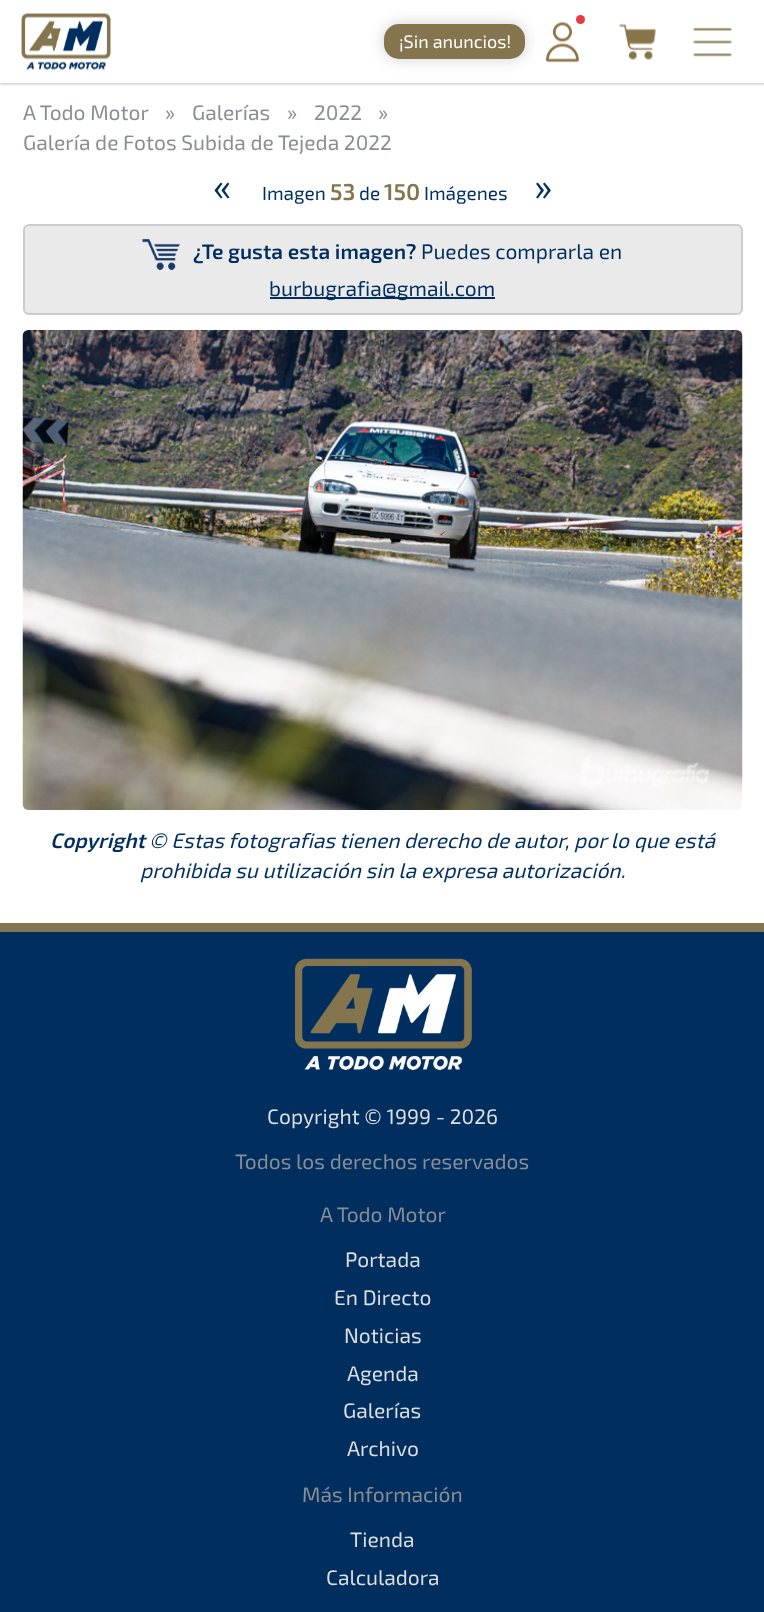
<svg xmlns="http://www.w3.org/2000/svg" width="764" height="1612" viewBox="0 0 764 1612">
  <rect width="100%" height="100%" fill="rgb(255,255,255)"/>
  <rect x="-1" y="-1" width="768" height="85" fill="rgb(192,192,192)" filter="blur(1.5px)"/>
  <rect x="0" y="0" width="764" height="83" fill="rgb(255,255,255)"/>
  <image x="21" y="13" width="90" height="57" href="pic1.png"/>
  <rect x="384" y="24" width="141" height="35" rx="15" fill="rgba(0,0,0,0.18)" filter="blur(7.5px)"/>
  <rect x="384" y="24" width="141" height="35" rx="15" fill="rgb(132,117,78)"/>
  <text x="399" y="48" font-family="'Exo 2'" font-size="18" fill="rgb(255,255,255)">¡Sin anuncios!</text>
  <image x="545" y="22" width="34" height="41" href="pic2.png"/>
  <circle cx="580.5" cy="19.5" r="4.5" fill="rgb(230,57,70)"/>
  <image x="619" y="23" width="37" height="38" href="pic3.png"/>
  <image x="693" y="27" width="39" height="30" href="pic4.png"/>
  <g font-family="'Exo 2'" font-size="21" fill="rgb(137,141,150)">
    <text x="23" y="120">A Todo Motor</text>
    <text x="165" y="120">»</text>
    <text x="192" y="120">Galerías</text>
    <text x="287" y="120">»</text>
    <text x="314" y="120">2022</text>
    <text x="378" y="120">»</text>
    <text x="23" y="150">Galería de Fotos Subida de Tejeda 2022</text>
  </g>
  <text x="213" y="200" font-family="'Exo 2'" font-size="38" fill="rgb(0,47,95)">«</text>
  <text x="262" y="200" font-family="'Exo 2'" font-size="19" fill="rgb(0,47,95)">Imagen</text>
  <text x="330" y="200" font-family="'Exo 2'" font-size="23" font-weight="600" fill="rgb(132,117,78)">53</text>
  <text x="359" y="200" font-family="'Exo 2'" font-size="19" fill="rgb(0,47,95)">de</text>
  <text x="384" y="200" font-family="'Exo 2'" font-size="23" font-weight="600" fill="rgb(132,117,78)">150</text>
  <text x="424" y="200" font-family="'Exo 2'" font-size="19" fill="rgb(0,47,95)">Imágenes</text>
  <text x="534" y="200" font-family="'Exo 2'" font-size="38" fill="rgb(0,47,95)">»</text>
  <rect x="24" y="225" width="718" height="89" rx="5" fill="rgb(234,234,234)" stroke="rgb(204,204,204)" stroke-width="2"/>
  <image x="142" y="239" width="38" height="31" href="pic5.png"/>
  <text x="193" y="259" font-family="'Exo 2'" font-size="21" font-weight="600" fill="rgb(0,47,95)">¿Te gusta esta imagen?</text>
  <text x="421" y="259" font-family="'Exo 2'" font-size="21" fill="rgb(0,47,95)">Puedes comprarla en</text>
  <rect x="270" y="297" width="225" height="2" fill="rgb(0,47,95)"/>
  <text x="269" y="296" font-family="'Exo 2'" font-size="21" fill="rgb(0,47,95)">burbugrafia@gmail.com</text>
  <image x="22" y="330" width="721" height="480" href="pic6.png"/>
  <text x="50" y="848" font-family="'Exo 2'" font-size="21" font-weight="600" font-style="italic" fill="rgb(0,47,95)">Copyright</text>
  <g font-family="'Exo 2'" font-size="21" font-style="italic" fill="rgb(0,47,95)">
    <text x="149" y="848">© Estas fotografias tienen derecho de autor, por lo que está</text>
    <text x="140" y="878">prohibida su utilización sin la expresa autorización.</text>
  </g>
  <rect x="0" y="932" width="764" height="680" fill="rgb(0,47,95)"/>
  <rect x="0" y="923" width="764" height="9" fill="rgb(132,117,78)"/>
  <image x="295" y="958" width="177" height="112" href="pic7.png"/>
  <text x="267" y="1124" font-family="'Exo 2'" font-size="21" fill="rgb(221,221,221)">Copyright © 1999 - 2026</text>
  <g font-family="'Exo 2'" font-size="21" fill="rgb(137,141,150)">
    <text x="235" y="1169">Todos los derechos reservados</text>
    <text x="320" y="1222">A Todo Motor</text>
  </g>
  <g font-family="'Exo 2'" font-size="21" fill="rgb(221,221,221)">
    <text x="345" y="1267">Portada</text>
    <text x="334" y="1305">En Directo</text>
    <text x="344" y="1343">Noticias</text>
    <text x="347" y="1381">Agenda</text>
    <text x="343" y="1418">Galerías</text>
    <text x="347" y="1456">Archivo</text>
  </g>
  <text x="302" y="1502" font-family="'Exo 2'" font-size="21" fill="rgb(137,141,150)">Más Información</text>
  <g font-family="'Exo 2'" font-size="21" fill="rgb(221,221,221)">
    <text x="350" y="1547">Tienda</text>
    <text x="326" y="1585">Calculadora</text>
  </g>
</svg>
